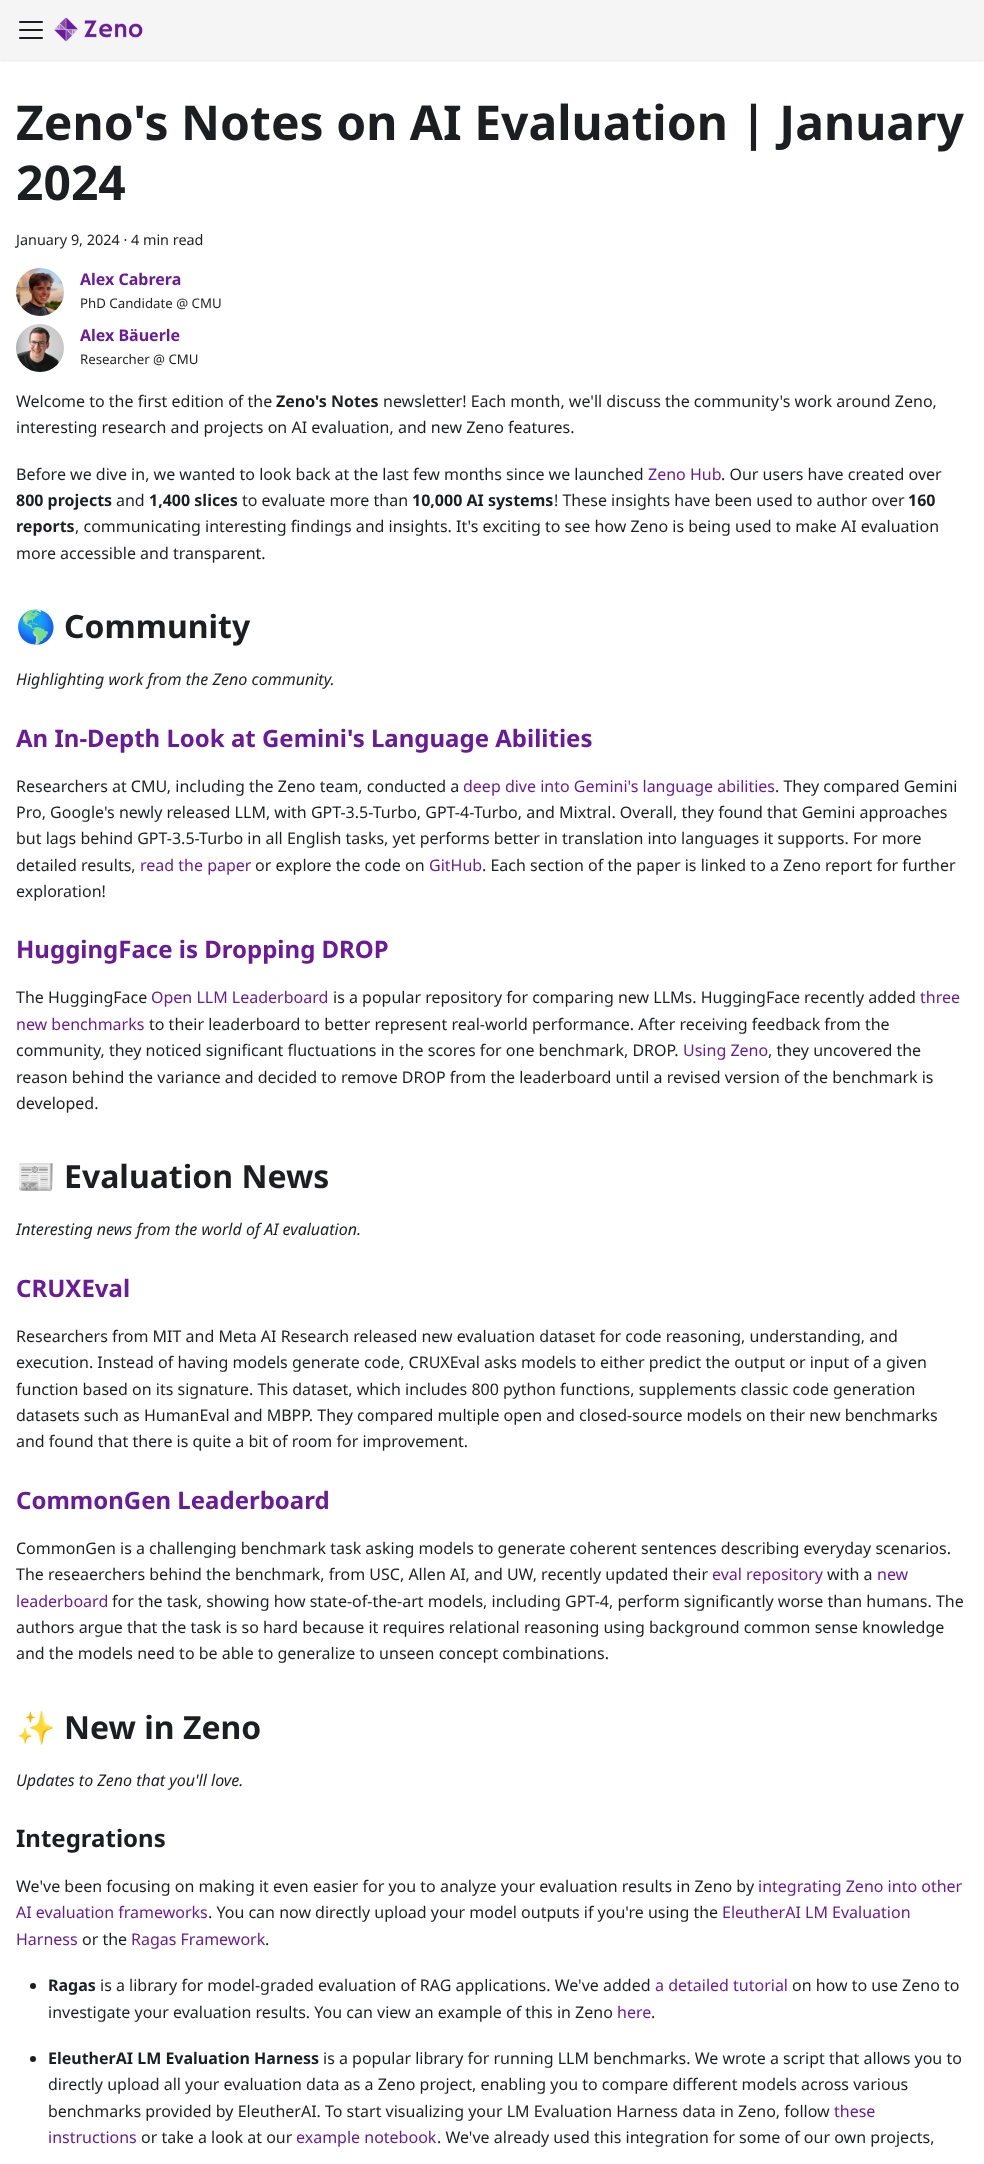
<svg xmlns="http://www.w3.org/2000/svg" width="984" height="2164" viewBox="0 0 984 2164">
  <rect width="100%" height="100%" fill="rgb(255,255,255)"/>
  <rect x="0" y="1" width="984" height="60" fill="rgba(0,0,0,0.1)" filter="blur(1px)"/>
  <rect x="0" y="0" width="984" height="60" fill="rgb(245,245,245)"/>
  <image x="19" y="21" width="24" height="18" href="pic1.png"/>
  <image x="54" y="17" width="89" height="25" href="pic2.png"/>
  <g font-family="Noto Sans" font-size="48" font-weight="bold" fill="rgb(28,30,33)">
    <text>
      <tspan x="16" y="140">Zeno's Notes on AI Evaluation | January</tspan>
      <tspan x="16" y="200">2024</tspan>
    </text>
  </g>
  <text x="16" y="245" font-family="Noto Sans" font-size="14.4" fill="rgb(28,30,33)">January 9, 2024 · 4 min read</text>
  <image x="16" y="268" width="48" height="48" href="pic3.png"/>
  <text x="80" y="285" font-family="Noto Sans" font-size="16" font-weight="bold" fill="rgb(106,27,154)">Alex Cabrera</text>
  <text x="80" y="308" font-family="Noto Sans" font-size="13.25" fill="rgb(28,30,33)">PhD Candidate @ CMU</text>
  <image x="16" y="324" width="48" height="48" href="pic4.png"/>
  <text x="80" y="341" font-family="Noto Sans" font-size="16" font-weight="bold" fill="rgb(106,27,154)">Alex Bäuerle</text>
  <text x="80" y="364" font-family="Noto Sans" font-size="13.25" fill="rgb(28,30,33)">Researcher @ CMU</text>
  <text x="16" y="407" font-family="Noto Sans" font-size="16" fill="rgb(28,30,33)">Welcome to the first edition of the</text>
  <text x="276" y="407" font-family="Noto Sans" font-size="16" font-weight="bold" fill="rgb(28,30,33)">Zeno's Notes</text>
  <g font-family="Noto Sans" font-size="16" fill="rgb(28,30,33)">
    <text x="383" y="407">newsletter! Each month, we'll discuss the community's work around Zeno,</text>
    <text x="16" y="433">interesting research and projects on AI evaluation, and new Zeno features.</text>
    <text x="16" y="480">Before we dive in, we wanted to look back at the last few months since we launched</text>
  </g>
  <text x="648" y="480" font-family="Noto Sans" font-size="16" fill="rgb(106,27,154)">Zeno Hub</text>
  <text x="721" y="480" font-family="Noto Sans" font-size="16" fill="rgb(28,30,33)">. Our users have created over</text>
  <text x="16" y="506" font-family="Noto Sans" font-size="16" font-weight="bold" fill="rgb(28,30,33)">800 projects</text>
  <text x="116" y="506" font-family="Noto Sans" font-size="16" fill="rgb(28,30,33)">and</text>
  <text x="149" y="506" font-family="Noto Sans" font-size="16" font-weight="bold" fill="rgb(28,30,33)">1,400 slices</text>
  <text x="242" y="506" font-family="Noto Sans" font-size="16" fill="rgb(28,30,33)">to evaluate more than</text>
  <text x="412" y="506" font-family="Noto Sans" font-size="16" font-weight="bold" fill="rgb(28,30,33)">10,000 AI systems</text>
  <text x="554" y="506" font-family="Noto Sans" font-size="16" fill="rgb(28,30,33)">! These insights have been used to author over</text>
  <g font-family="Noto Sans" font-size="16" font-weight="bold" fill="rgb(28,30,33)">
    <text x="908" y="506">160</text>
    <text x="16" y="532">reports</text>
  </g>
  <g font-family="Noto Sans" font-size="16" fill="rgb(28,30,33)">
    <text x="75" y="532">, communicating interesting findings and insights. It's exciting to see how Zeno is being used to make AI evaluation</text>
    <text x="16" y="559">more accessible and transparent.</text>
  </g>
  <text x="16" y="638" font-family="Noto Color Emoji" font-size="32" font-weight="bold" fill="rgb(28,30,33)">🌎</text>
  <text x="64" y="638" font-family="Noto Sans" font-size="32" font-weight="bold" fill="rgb(28,30,33)">Community</text>
  <text x="16" y="685" font-family="Noto Sans" font-size="16" font-style="italic" fill="rgb(28,30,33)">Highlighting work from the Zeno community.</text>
  <text x="16" y="747" font-family="Noto Sans" font-size="24" font-weight="bold" fill="rgb(106,27,154)">An In-Depth Look at Gemini's Language Abilities</text>
  <text x="16" y="792" font-family="Noto Sans" font-size="16" fill="rgb(28,30,33)">Researchers at CMU, including the Zeno team, conducted a</text>
  <text x="463" y="792" font-family="Noto Sans" font-size="16" fill="rgb(106,27,154)">deep dive into Gemini's language abilities</text>
  <g font-family="Noto Sans" font-size="16" fill="rgb(28,30,33)">
    <text x="775" y="792">. They compared Gemini</text>
    <text>
      <tspan x="16" y="818">Pro, Google's newly released LLM, with GPT-3.5-Turbo, GPT-4-Turbo, and Mixtral. Overall, they found that Gemini approaches</tspan>
      <tspan x="16" y="844">but lags behind GPT-3.5-Turbo in all English tasks, yet performs better in translation into languages it supports. For more</tspan>
      <tspan x="16" y="871">detailed results,</tspan>
    </text>
  </g>
  <text x="140" y="871" font-family="Noto Sans" font-size="16" fill="rgb(106,27,154)">read the paper</text>
  <text x="255" y="871" font-family="Noto Sans" font-size="16" fill="rgb(28,30,33)">or explore the code on</text>
  <text x="429" y="871" font-family="Noto Sans" font-size="16" fill="rgb(106,27,154)">GitHub</text>
  <g font-family="Noto Sans" font-size="16" fill="rgb(28,30,33)">
    <text x="482" y="871">. Each section of the paper is linked to a Zeno report for further</text>
    <text x="16" y="897">exploration!</text>
  </g>
  <text x="16" y="958" font-family="Noto Sans" font-size="24" font-weight="bold" fill="rgb(106,27,154)">HuggingFace is Dropping DROP</text>
  <text x="16" y="1003" font-family="Noto Sans" font-size="16" fill="rgb(28,30,33)">The HuggingFace</text>
  <text x="151" y="1003" font-family="Noto Sans" font-size="16" fill="rgb(106,27,154)">Open LLM Leaderboard</text>
  <text x="333" y="1003" font-family="Noto Sans" font-size="16" fill="rgb(28,30,33)">is a popular repository for comparing new LLMs. HuggingFace recently added</text>
  <g font-family="Noto Sans" font-size="16" fill="rgb(106,27,154)">
    <text x="920" y="1003">three</text>
    <text x="16" y="1030">new benchmarks</text>
  </g>
  <g font-family="Noto Sans" font-size="16" fill="rgb(28,30,33)">
    <text x="149" y="1030">to their leaderboard to better represent real-world performance. After receiving feedback from the</text>
    <text x="16" y="1056">community, they noticed significant fluctuations in the scores for one benchmark, DROP.</text>
  </g>
  <text x="683" y="1056" font-family="Noto Sans" font-size="16" fill="rgb(106,27,154)">Using Zeno</text>
  <g font-family="Noto Sans" font-size="16" fill="rgb(28,30,33)">
    <text x="768" y="1056">, they uncovered the</text>
    <text>
      <tspan x="16" y="1083">reason behind the variance and decided to remove DROP from the leaderboard until a revised version of the benchmark is</tspan>
      <tspan x="16" y="1109">developed.</tspan>
    </text>
  </g>
  <text x="16" y="1188" font-family="Noto Color Emoji" font-size="32" font-weight="bold" fill="rgb(28,30,33)">📰</text>
  <text x="64" y="1188" font-family="Noto Sans" font-size="32" font-weight="bold" fill="rgb(28,30,33)">Evaluation News</text>
  <text x="16" y="1235" font-family="Noto Sans" font-size="16" font-style="italic" fill="rgb(28,30,33)">Interesting news from the world of AI evaluation.</text>
  <text x="16" y="1297" font-family="Noto Sans" font-size="24" font-weight="bold" fill="rgb(106,27,154)">CRUXEval</text>
  <g font-family="Noto Sans" font-size="16" fill="rgb(28,30,33)">
    <text>
      <tspan x="16" y="1342">Researchers from MIT and Meta AI Research released new evaluation dataset for code reasoning, understanding, and</tspan>
      <tspan x="16" y="1368">execution. Instead of having models generate code, CRUXEval asks models to either predict the output or input of a given</tspan>
      <tspan x="16" y="1395">function based on its signature. This dataset, which includes 800 python functions, supplements classic code generation</tspan>
      <tspan x="16" y="1421">datasets such as HumanEval and MBPP. They compared multiple open and closed-source models on their new benchmarks</tspan>
      <tspan x="16" y="1447">and found that there is quite a bit of room for improvement.</tspan>
    </text>
  </g>
  <text x="16" y="1509" font-family="Noto Sans" font-size="24" font-weight="bold" fill="rgb(106,27,154)">CommonGen Leaderboard</text>
  <g font-family="Noto Sans" font-size="16" fill="rgb(28,30,33)">
    <text>
      <tspan x="16" y="1554">CommonGen is a challenging benchmark task asking models to generate coherent sentences describing everyday scenarios.</tspan>
      <tspan x="16" y="1580">The reseaerchers behind the benchmark, from USC, Allen AI, and UW, recently updated their</tspan>
    </text>
  </g>
  <text x="712" y="1580" font-family="Noto Sans" font-size="16" fill="rgb(106,27,154)">eval repository</text>
  <text x="827" y="1580" font-family="Noto Sans" font-size="16" fill="rgb(28,30,33)">with a</text>
  <g font-family="Noto Sans" font-size="16" fill="rgb(106,27,154)">
    <text x="877" y="1580">new</text>
    <text x="16" y="1607">leaderboard</text>
  </g>
  <g font-family="Noto Sans" font-size="16" fill="rgb(28,30,33)">
    <text x="112" y="1607">for the task, showing how state-of-the-art models, including GPT-4, perform significantly worse than humans. The</text>
    <text>
      <tspan x="16" y="1633">authors argue that the task is so hard because it requires relational reasoning using background common sense knowledge</tspan>
      <tspan x="16" y="1659">and the models need to be able to generalize to unseen concept combinations.</tspan>
    </text>
  </g>
  <text x="16" y="1739" font-family="Noto Color Emoji" font-size="32" font-weight="bold" fill="rgb(28,30,33)">✨</text>
  <text x="64" y="1739" font-family="Noto Sans" font-size="32" font-weight="bold" fill="rgb(28,30,33)">New in Zeno</text>
  <text x="16" y="1786" font-family="Noto Sans" font-size="16" font-style="italic" fill="rgb(28,30,33)">Updates to Zeno that you'll love.</text>
  <text x="16" y="1847" font-family="Noto Sans" font-size="24" font-weight="bold" fill="rgb(28,30,33)">Integrations</text>
  <text x="16" y="1892" font-family="Noto Sans" font-size="16" fill="rgb(28,30,33)">We've been focusing on making it even easier for you to analyze your evaluation results in Zeno by</text>
  <g font-family="Noto Sans" font-size="16" fill="rgb(106,27,154)">
    <text x="758" y="1892">integrating Zeno into other</text>
    <text x="16" y="1918">AI evaluation frameworks</text>
  </g>
  <text x="208" y="1918" font-family="Noto Sans" font-size="16" fill="rgb(28,30,33)">. You can now directly upload your model outputs if you're using the</text>
  <g font-family="Noto Sans" font-size="16" fill="rgb(106,27,154)">
    <text x="722" y="1918">EleutherAI LM Evaluation</text>
    <text x="16" y="1945">Harness</text>
  </g>
  <text x="82" y="1945" font-family="Noto Sans" font-size="16" fill="rgb(28,30,33)">or the</text>
  <text x="131" y="1945" font-family="Noto Sans" font-size="16" fill="rgb(106,27,154)">Ragas Framework</text>
  <text x="265" y="1945" font-family="Noto Sans" font-size="16" fill="rgb(28,30,33)">.</text>
  <circle cx="33" cy="1986" r="3" fill="rgb(28,30,33)"/>
  <text x="48" y="1991" font-family="Noto Sans" font-size="16" font-weight="bold" fill="rgb(28,30,33)">Ragas</text>
  <text x="100" y="1991" font-family="Noto Sans" font-size="16" fill="rgb(28,30,33)">is a library for model-graded evaluation of RAG applications. We've added</text>
  <text x="655" y="1991" font-family="Noto Sans" font-size="16" fill="rgb(106,27,154)">a detailed tutorial</text>
  <g font-family="Noto Sans" font-size="16" fill="rgb(28,30,33)">
    <text x="792" y="1991">on how to use Zeno to</text>
    <text x="48" y="2018">investigate your evaluation results. You can view an example of this in Zeno</text>
  </g>
  <text x="617" y="2018" font-family="Noto Sans" font-size="16" fill="rgb(106,27,154)">here</text>
  <text x="651" y="2018" font-family="Noto Sans" font-size="16" fill="rgb(28,30,33)">.</text>
  <circle cx="33" cy="2059" r="3" fill="rgb(28,30,33)"/>
  <text x="48" y="2064" font-family="Noto Sans" font-size="16" font-weight="bold" fill="rgb(28,30,33)">EleutherAI LM Evaluation Harness</text>
  <g font-family="Noto Sans" font-size="16" fill="rgb(28,30,33)">
    <text x="323" y="2064">is a popular library for running LLM benchmarks. We wrote a script that allows you to</text>
    <text>
      <tspan x="48" y="2090">directly upload all your evaluation data as a Zeno project, enabling you to compare different models across various</tspan>
      <tspan x="48" y="2117">benchmarks provided by EleutherAI. To start visualizing your LM Evaluation Harness data in Zeno, follow</tspan>
    </text>
  </g>
  <g font-family="Noto Sans" font-size="16" fill="rgb(106,27,154)">
    <text x="834" y="2117">these</text>
    <text x="48" y="2143">instructions</text>
  </g>
  <text x="141" y="2143" font-family="Noto Sans" font-size="16" fill="rgb(28,30,33)">or take a look at our</text>
  <text x="296" y="2143" font-family="Noto Sans" font-size="16" fill="rgb(106,27,154)">example notebook</text>
  <text x="437" y="2143" font-family="Noto Sans" font-size="16" fill="rgb(28,30,33)">. We've already used this integration for some of our own projects,</text>
</svg>
